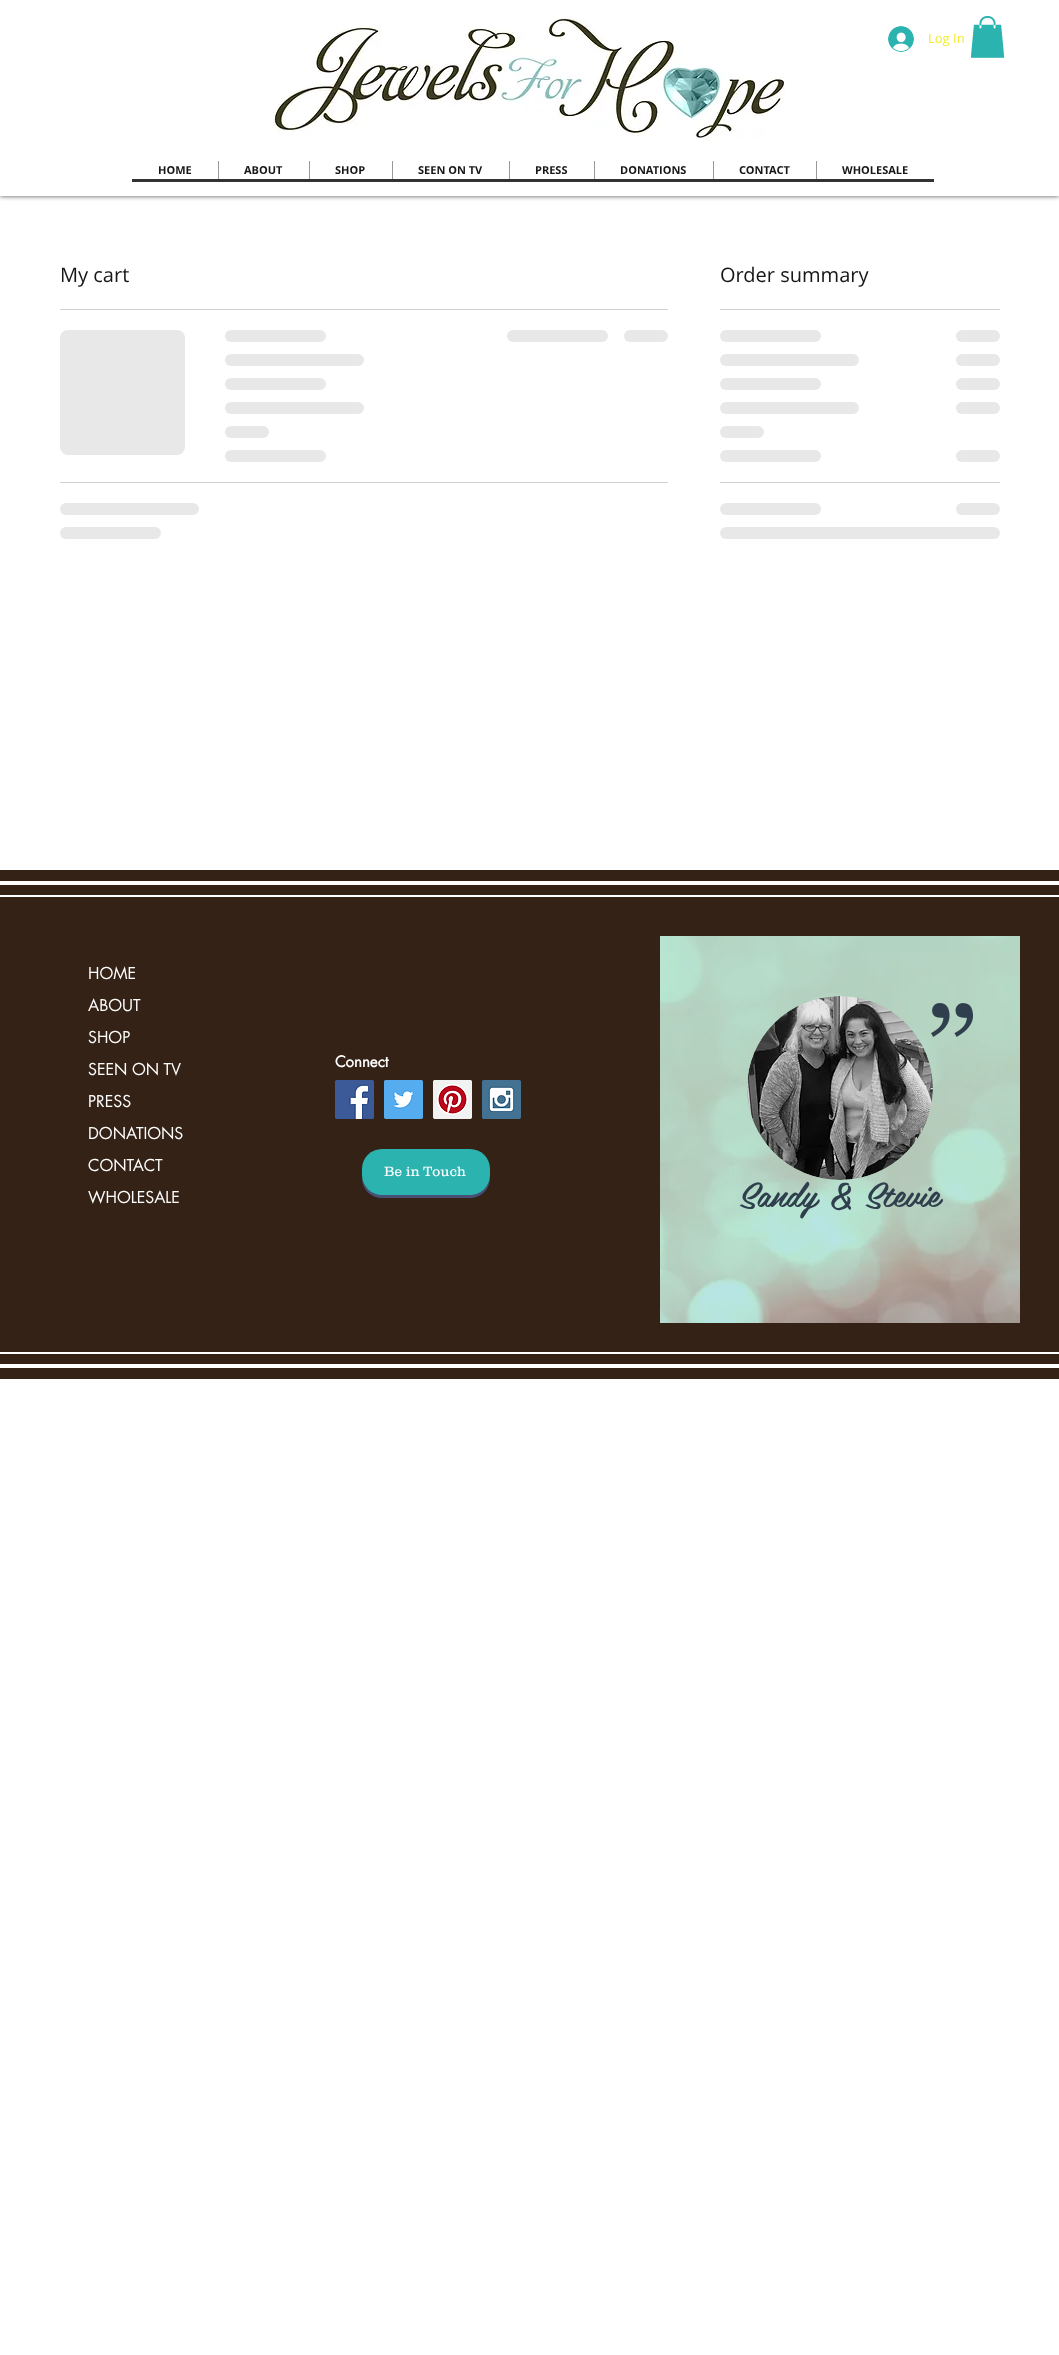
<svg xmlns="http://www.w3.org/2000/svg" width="1059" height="2355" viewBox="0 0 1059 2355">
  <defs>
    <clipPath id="clip1"><rect x="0" y="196" width="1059" height="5"/></clipPath>
    <linearGradient id="g1" gradientUnits="userSpaceOnUse" x1="60" y1="393" x2="560" y2="393"><stop offset="0.25" stop-color="rgb(232,232,232)"/><stop offset="0.37" stop-color="rgb(209,209,209)"/><stop offset="0.63" stop-color="rgb(232,232,232)"/></linearGradient>
    <linearGradient id="g2" gradientUnits="userSpaceOnUse" x1="225" y1="336" x2="629" y2="336"><stop offset="0.25" stop-color="rgb(232,232,232)"/><stop offset="0.37" stop-color="rgb(209,209,209)"/><stop offset="0.63" stop-color="rgb(232,232,232)"/></linearGradient>
    <linearGradient id="g3" gradientUnits="userSpaceOnUse" x1="225" y1="360" x2="781" y2="360"><stop offset="0.25" stop-color="rgb(232,232,232)"/><stop offset="0.37" stop-color="rgb(209,209,209)"/><stop offset="0.63" stop-color="rgb(232,232,232)"/></linearGradient>
    <linearGradient id="g4" gradientUnits="userSpaceOnUse" x1="225" y1="384" x2="629" y2="384"><stop offset="0.25" stop-color="rgb(232,232,232)"/><stop offset="0.37" stop-color="rgb(209,209,209)"/><stop offset="0.63" stop-color="rgb(232,232,232)"/></linearGradient>
    <linearGradient id="g5" gradientUnits="userSpaceOnUse" x1="225" y1="408" x2="781" y2="408"><stop offset="0.25" stop-color="rgb(232,232,232)"/><stop offset="0.37" stop-color="rgb(209,209,209)"/><stop offset="0.63" stop-color="rgb(232,232,232)"/></linearGradient>
    <linearGradient id="g6" gradientUnits="userSpaceOnUse" x1="225" y1="432" x2="401" y2="432"><stop offset="0.25" stop-color="rgb(232,232,232)"/><stop offset="0.37" stop-color="rgb(209,209,209)"/><stop offset="0.63" stop-color="rgb(232,232,232)"/></linearGradient>
    <linearGradient id="g7" gradientUnits="userSpaceOnUse" x1="225" y1="456" x2="629" y2="456"><stop offset="0.25" stop-color="rgb(232,232,232)"/><stop offset="0.37" stop-color="rgb(209,209,209)"/><stop offset="0.63" stop-color="rgb(232,232,232)"/></linearGradient>
    <linearGradient id="g8" gradientUnits="userSpaceOnUse" x1="507" y1="336" x2="911" y2="336"><stop offset="0.25" stop-color="rgb(232,232,232)"/><stop offset="0.37" stop-color="rgb(209,209,209)"/><stop offset="0.63" stop-color="rgb(232,232,232)"/></linearGradient>
    <linearGradient id="g9" gradientUnits="userSpaceOnUse" x1="624" y1="336" x2="800" y2="336"><stop offset="0.25" stop-color="rgb(232,232,232)"/><stop offset="0.37" stop-color="rgb(209,209,209)"/><stop offset="0.63" stop-color="rgb(232,232,232)"/></linearGradient>
    <linearGradient id="g10" gradientUnits="userSpaceOnUse" x1="60" y1="509" x2="616" y2="509"><stop offset="0.25" stop-color="rgb(232,232,232)"/><stop offset="0.37" stop-color="rgb(209,209,209)"/><stop offset="0.63" stop-color="rgb(232,232,232)"/></linearGradient>
    <linearGradient id="g11" gradientUnits="userSpaceOnUse" x1="60" y1="533" x2="464" y2="533"><stop offset="0.25" stop-color="rgb(232,232,232)"/><stop offset="0.37" stop-color="rgb(209,209,209)"/><stop offset="0.63" stop-color="rgb(232,232,232)"/></linearGradient>
    <linearGradient id="g12" gradientUnits="userSpaceOnUse" x1="720" y1="336" x2="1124" y2="336"><stop offset="0.25" stop-color="rgb(232,232,232)"/><stop offset="0.37" stop-color="rgb(209,209,209)"/><stop offset="0.63" stop-color="rgb(232,232,232)"/></linearGradient>
    <linearGradient id="g13" gradientUnits="userSpaceOnUse" x1="956" y1="336" x2="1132" y2="336"><stop offset="0.25" stop-color="rgb(232,232,232)"/><stop offset="0.37" stop-color="rgb(209,209,209)"/><stop offset="0.63" stop-color="rgb(232,232,232)"/></linearGradient>
    <linearGradient id="g14" gradientUnits="userSpaceOnUse" x1="720" y1="360" x2="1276" y2="360"><stop offset="0.25" stop-color="rgb(232,232,232)"/><stop offset="0.37" stop-color="rgb(209,209,209)"/><stop offset="0.63" stop-color="rgb(232,232,232)"/></linearGradient>
    <linearGradient id="g15" gradientUnits="userSpaceOnUse" x1="956" y1="360" x2="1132" y2="360"><stop offset="0.25" stop-color="rgb(232,232,232)"/><stop offset="0.37" stop-color="rgb(209,209,209)"/><stop offset="0.63" stop-color="rgb(232,232,232)"/></linearGradient>
    <linearGradient id="g16" gradientUnits="userSpaceOnUse" x1="720" y1="384" x2="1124" y2="384"><stop offset="0.25" stop-color="rgb(232,232,232)"/><stop offset="0.37" stop-color="rgb(209,209,209)"/><stop offset="0.63" stop-color="rgb(232,232,232)"/></linearGradient>
    <linearGradient id="g17" gradientUnits="userSpaceOnUse" x1="956" y1="384" x2="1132" y2="384"><stop offset="0.25" stop-color="rgb(232,232,232)"/><stop offset="0.37" stop-color="rgb(209,209,209)"/><stop offset="0.63" stop-color="rgb(232,232,232)"/></linearGradient>
    <linearGradient id="g18" gradientUnits="userSpaceOnUse" x1="720" y1="408" x2="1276" y2="408"><stop offset="0.25" stop-color="rgb(232,232,232)"/><stop offset="0.37" stop-color="rgb(209,209,209)"/><stop offset="0.63" stop-color="rgb(232,232,232)"/></linearGradient>
    <linearGradient id="g19" gradientUnits="userSpaceOnUse" x1="956" y1="408" x2="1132" y2="408"><stop offset="0.25" stop-color="rgb(232,232,232)"/><stop offset="0.37" stop-color="rgb(209,209,209)"/><stop offset="0.63" stop-color="rgb(232,232,232)"/></linearGradient>
    <linearGradient id="g20" gradientUnits="userSpaceOnUse" x1="720" y1="432" x2="896" y2="432"><stop offset="0.25" stop-color="rgb(232,232,232)"/><stop offset="0.37" stop-color="rgb(209,209,209)"/><stop offset="0.63" stop-color="rgb(232,232,232)"/></linearGradient>
    <linearGradient id="g21" gradientUnits="userSpaceOnUse" x1="720" y1="456" x2="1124" y2="456"><stop offset="0.25" stop-color="rgb(232,232,232)"/><stop offset="0.37" stop-color="rgb(209,209,209)"/><stop offset="0.63" stop-color="rgb(232,232,232)"/></linearGradient>
    <linearGradient id="g22" gradientUnits="userSpaceOnUse" x1="956" y1="456" x2="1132" y2="456"><stop offset="0.25" stop-color="rgb(232,232,232)"/><stop offset="0.37" stop-color="rgb(209,209,209)"/><stop offset="0.63" stop-color="rgb(232,232,232)"/></linearGradient>
    <linearGradient id="g23" gradientUnits="userSpaceOnUse" x1="720" y1="509" x2="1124" y2="509"><stop offset="0.25" stop-color="rgb(232,232,232)"/><stop offset="0.37" stop-color="rgb(209,209,209)"/><stop offset="0.63" stop-color="rgb(232,232,232)"/></linearGradient>
    <linearGradient id="g24" gradientUnits="userSpaceOnUse" x1="956" y1="509" x2="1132" y2="509"><stop offset="0.25" stop-color="rgb(232,232,232)"/><stop offset="0.37" stop-color="rgb(209,209,209)"/><stop offset="0.63" stop-color="rgb(232,232,232)"/></linearGradient>
    <linearGradient id="g25" gradientUnits="userSpaceOnUse" x1="720" y1="533" x2="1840" y2="533"><stop offset="0.25" stop-color="rgb(232,232,232)"/><stop offset="0.37" stop-color="rgb(209,209,209)"/><stop offset="0.63" stop-color="rgb(232,232,232)"/></linearGradient>
  </defs>
  <rect width="100%" height="100%" fill="rgb(255,255,255)"/>
  <g clip-path="url(#clip1)">
    <rect x="0" y="0" width="1059" height="196" fill="rgba(0,0,0,0.7)" filter="blur(2.5px)"/>
  </g>
  <image x="273" y="16" width="512" height="125" href="pic1.png"/>
  <image x="888" y="26" width="26" height="26" href="pic2.png"/>
  <text x="928" y="43" font-family="Open Sans" font-size="13" fill="rgb(242,236,48)">Log In</text>
  <image x="970" y="16" width="35" height="42" href="pic3.png"/>
  <text x="158" y="174" font-family="Open Sans" font-size="11" font-weight="bold" fill="rgb(24,23,23)">HOME</text>
  <rect x="218" y="161" width="1" height="18" fill="rgb(153,153,153)"/>
  <text x="244" y="174" font-family="Open Sans" font-size="11" font-weight="bold" fill="rgb(24,23,23)">ABOUT</text>
  <rect x="309" y="161" width="1" height="18" fill="rgb(153,153,153)"/>
  <text x="335" y="174" font-family="Open Sans" font-size="11" font-weight="bold" fill="rgb(24,23,23)">SHOP</text>
  <rect x="392" y="161" width="1" height="18" fill="rgb(153,153,153)"/>
  <text x="418" y="174" font-family="Open Sans" font-size="11" font-weight="bold" fill="rgb(24,23,23)">SEEN ON TV</text>
  <rect x="509" y="161" width="1" height="18" fill="rgb(153,153,153)"/>
  <text x="535" y="174" font-family="Open Sans" font-size="11" font-weight="bold" fill="rgb(24,23,23)">PRESS</text>
  <rect x="594" y="161" width="1" height="18" fill="rgb(153,153,153)"/>
  <text x="620" y="174" font-family="Open Sans" font-size="11" font-weight="bold" fill="rgb(24,23,23)">DONATIONS</text>
  <rect x="713" y="161" width="1" height="18" fill="rgb(153,153,153)"/>
  <text x="739" y="174" font-family="Open Sans" font-size="11" font-weight="bold" fill="rgb(24,23,23)">CONTACT</text>
  <rect x="816" y="161" width="1" height="18" fill="rgb(153,153,153)"/>
  <text x="842" y="174" font-family="Open Sans" font-size="11" font-weight="bold" fill="rgb(24,23,23)">WHOLESALE</text>
  <rect x="132" y="179" width="802" height="3" fill="rgb(51,51,51)"/>
  <rect x="60" y="309" width="608" height="1" fill="rgb(209,209,209)"/>
  <text x="60" y="282" font-family="Open Sans" font-size="20" fill="rgb(24,23,23)">My cart</text>
  <rect x="60" y="330" width="125" height="125" rx="8" fill="url(#g1)"/>
  <rect x="225" y="330" width="101" height="12" rx="6" fill="url(#g2)"/>
  <rect x="225" y="354" width="139" height="12" rx="6" fill="url(#g3)"/>
  <rect x="225" y="378" width="101" height="12" rx="6" fill="url(#g4)"/>
  <rect x="225" y="402" width="139" height="12" rx="6" fill="url(#g5)"/>
  <rect x="225" y="426" width="44" height="12" rx="6" fill="url(#g6)"/>
  <rect x="225" y="450" width="101" height="12" rx="6" fill="url(#g7)"/>
  <rect x="507" y="330" width="101" height="12" rx="6" fill="url(#g8)"/>
  <rect x="624" y="330" width="44" height="12" rx="6" fill="url(#g9)"/>
  <rect x="60" y="482" width="608" height="1" fill="rgb(209,209,209)"/>
  <rect x="60" y="503" width="139" height="12" rx="6" fill="url(#g10)"/>
  <rect x="60" y="527" width="101" height="12" rx="6" fill="url(#g11)"/>
  <rect x="720" y="309" width="280" height="1" fill="rgb(209,209,209)"/>
  <text x="720" y="282" font-family="Open Sans" font-size="20" fill="rgb(24,23,23)">Order summary</text>
  <rect x="720" y="330" width="101" height="12" rx="6" fill="url(#g12)"/>
  <rect x="956" y="330" width="44" height="12" rx="6" fill="url(#g13)"/>
  <rect x="720" y="354" width="139" height="12" rx="6" fill="url(#g14)"/>
  <rect x="956" y="354" width="44" height="12" rx="6" fill="url(#g15)"/>
  <rect x="720" y="378" width="101" height="12" rx="6" fill="url(#g16)"/>
  <rect x="956" y="378" width="44" height="12" rx="6" fill="url(#g17)"/>
  <rect x="720" y="402" width="139" height="12" rx="6" fill="url(#g18)"/>
  <rect x="956" y="402" width="44" height="12" rx="6" fill="url(#g19)"/>
  <rect x="720" y="426" width="44" height="12" rx="6" fill="url(#g20)"/>
  <rect x="720" y="450" width="101" height="12" rx="6" fill="url(#g21)"/>
  <rect x="956" y="450" width="44" height="12" rx="6" fill="url(#g22)"/>
  <rect x="720" y="482" width="280" height="1" fill="rgb(209,209,209)"/>
  <rect x="720" y="503" width="101" height="12" rx="6" fill="url(#g23)"/>
  <rect x="956" y="503" width="44" height="12" rx="6" fill="url(#g24)"/>
  <rect x="720" y="527" width="280" height="12" rx="6" fill="url(#g25)"/>
  <rect x="0" y="870" width="1059" height="509" fill="rgb(52,34,22)"/>
  <rect x="0" y="881" width="1059" height="4" fill="rgb(255,255,255)"/>
  <rect x="0" y="1364" width="1059" height="4" fill="rgb(255,255,255)"/>
  <rect x="0" y="895" width="1059" height="2" fill="rgb(255,255,255)"/>
  <rect x="0" y="1352" width="1059" height="2" fill="rgb(255,255,255)"/>
  <g font-family="futura" font-size="16" fill="rgb(255,255,255)">
    <text x="88" y="979">HOME</text>
    <text x="88" y="1011">ABOUT</text>
    <text x="88" y="1043">SHOP</text>
    <text x="88" y="1075">SEEN ON TV</text>
    <text x="88" y="1107">PRESS</text>
    <text x="88" y="1139">DONATIONS</text>
    <text x="88" y="1171">CONTACT</text>
    <text x="88" y="1203">WHOLESALE</text>
  </g>
  <text x="335" y="1067" font-family="futura" font-size="15" font-weight="bold" fill="rgb(255,255,255)">Connect</text>
  <image x="335" y="1080" width="39" height="39" href="pic4.png"/>
  <image x="384" y="1080" width="39" height="39" href="pic5.png"/>
  <image x="433" y="1080" width="39" height="39" href="pic6.png"/>
  <image x="482" y="1080" width="39" height="39" href="pic7.png"/>
  <path d="M362 1175V1178C362 1189 371 1198 382 1198H470C481 1198 490 1189 490 1178V1175C490 1186 481 1195 470 1195H382C371 1195 362 1186 362 1175Z" fill="rgb(72,80,119)"/>
  <rect x="362" y="1149" width="128" height="46" rx="20" fill="rgb(43,179,176)"/>
  <text x="384" y="1176" font-family="'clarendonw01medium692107'" font-size="14" font-weight="300" fill="rgb(255,255,255)">Be in Touch</text>
  <image x="660" y="936" width="360" height="387" href="pic8.png"/>
  <image x="747" y="996" width="186" height="184" href="pic9.png"/>
  <image x="931" y="1003" width="42" height="34" href="pic10.png"/>
  <text x="739" y="1207" font-family="'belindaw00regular'" font-size="34" fill="rgb(48,63,77)">Sandy &amp; Stevie</text>
</svg>
